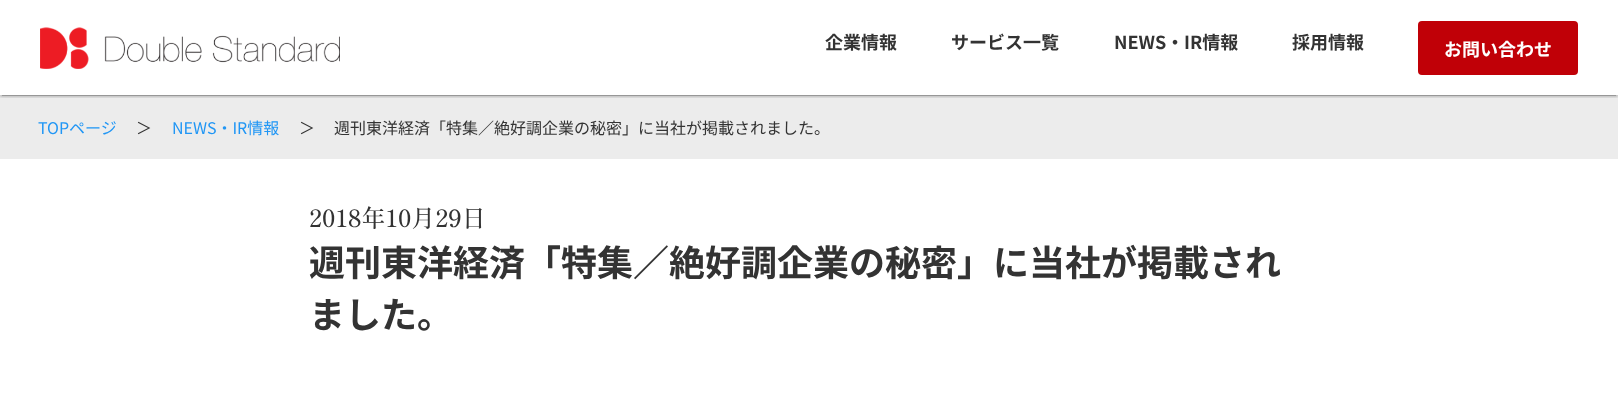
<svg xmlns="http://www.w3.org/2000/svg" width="1618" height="407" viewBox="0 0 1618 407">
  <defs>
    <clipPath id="clip1"><rect x="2" y="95" width="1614" height="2"/></clipPath>
    <clipPath id="clip2"><rect x="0" y="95" width="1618" height="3"/></clipPath>
  </defs>
  <rect width="100%" height="100%" fill="rgb(255,255,255)"/>
  <rect x="0" y="95" width="1618" height="64" fill="rgb(236,236,236)"/>
  <g clip-path="url(#clip1)">
    <rect x="2" y="5" width="1614" height="91" fill="rgba(0,0,0,0.2)" filter="blur(0.5px)"/>
  </g>
  <g clip-path="url(#clip2)">
    <rect x="0" y="1" width="1618" height="95" fill="rgba(0,0,0,0.12)" filter="blur(2.5px)"/>
    <rect x="0" y="2" width="1618" height="95" fill="rgba(0,0,0,0.14)" filter="blur(1px)"/>
  </g>
  <image x="40" y="27" width="300" height="42" href="pic1.png"/>
  <g font-family="Noto Sans JP" font-size="18" font-weight="bold" fill="rgb(51,51,51)">
    <text x="825" y="49">企業情報</text>
    <text x="951" y="49">サービス一覧</text>
    <text x="1114" y="49">NEWS・IR情報</text>
    <text x="1292" y="49">採用情報</text>
  </g>
  <rect x="1418" y="21" width="160" height="54" rx="4" fill="rgb(192,0,7)"/>
  <text x="1444" y="56" font-family="Noto Sans JP" font-size="18" font-weight="bold" fill="rgb(255,255,255)">お問い合わせ</text>
  <text x="38" y="134" font-family="Noto Sans JP" font-size="16" fill="rgb(32,150,245)">TOPページ</text>
  <text x="136" y="134" font-family="Noto Sans JP" font-size="16" fill="rgb(51,51,51)">＞</text>
  <text x="172" y="134" font-family="Noto Sans JP" font-size="16" fill="rgb(32,150,245)">NEWS・IR情報</text>
  <g font-family="Noto Sans JP" font-size="16" fill="rgb(51,51,51)">
    <text x="299" y="134">＞</text>
    <text x="334" y="134">週刊東洋経済「特集／絶好調企業の秘密」に当社が掲載されました。</text>
  </g>
  <text x="309" y="227" font-family="Shippori Mincho" font-size="24" font-weight="500" fill="rgb(51,51,51)">2018年10月29日</text>
  <g font-family="Noto Sans JP" font-size="36" font-weight="bold" fill="rgb(51,51,51)">
    <text>
      <tspan x="309" y="276">週刊東洋経済「特集／絶好調企業の秘密」に当社が掲載され</tspan>
      <tspan x="309" y="328">ました。</tspan>
    </text>
  </g>
</svg>
